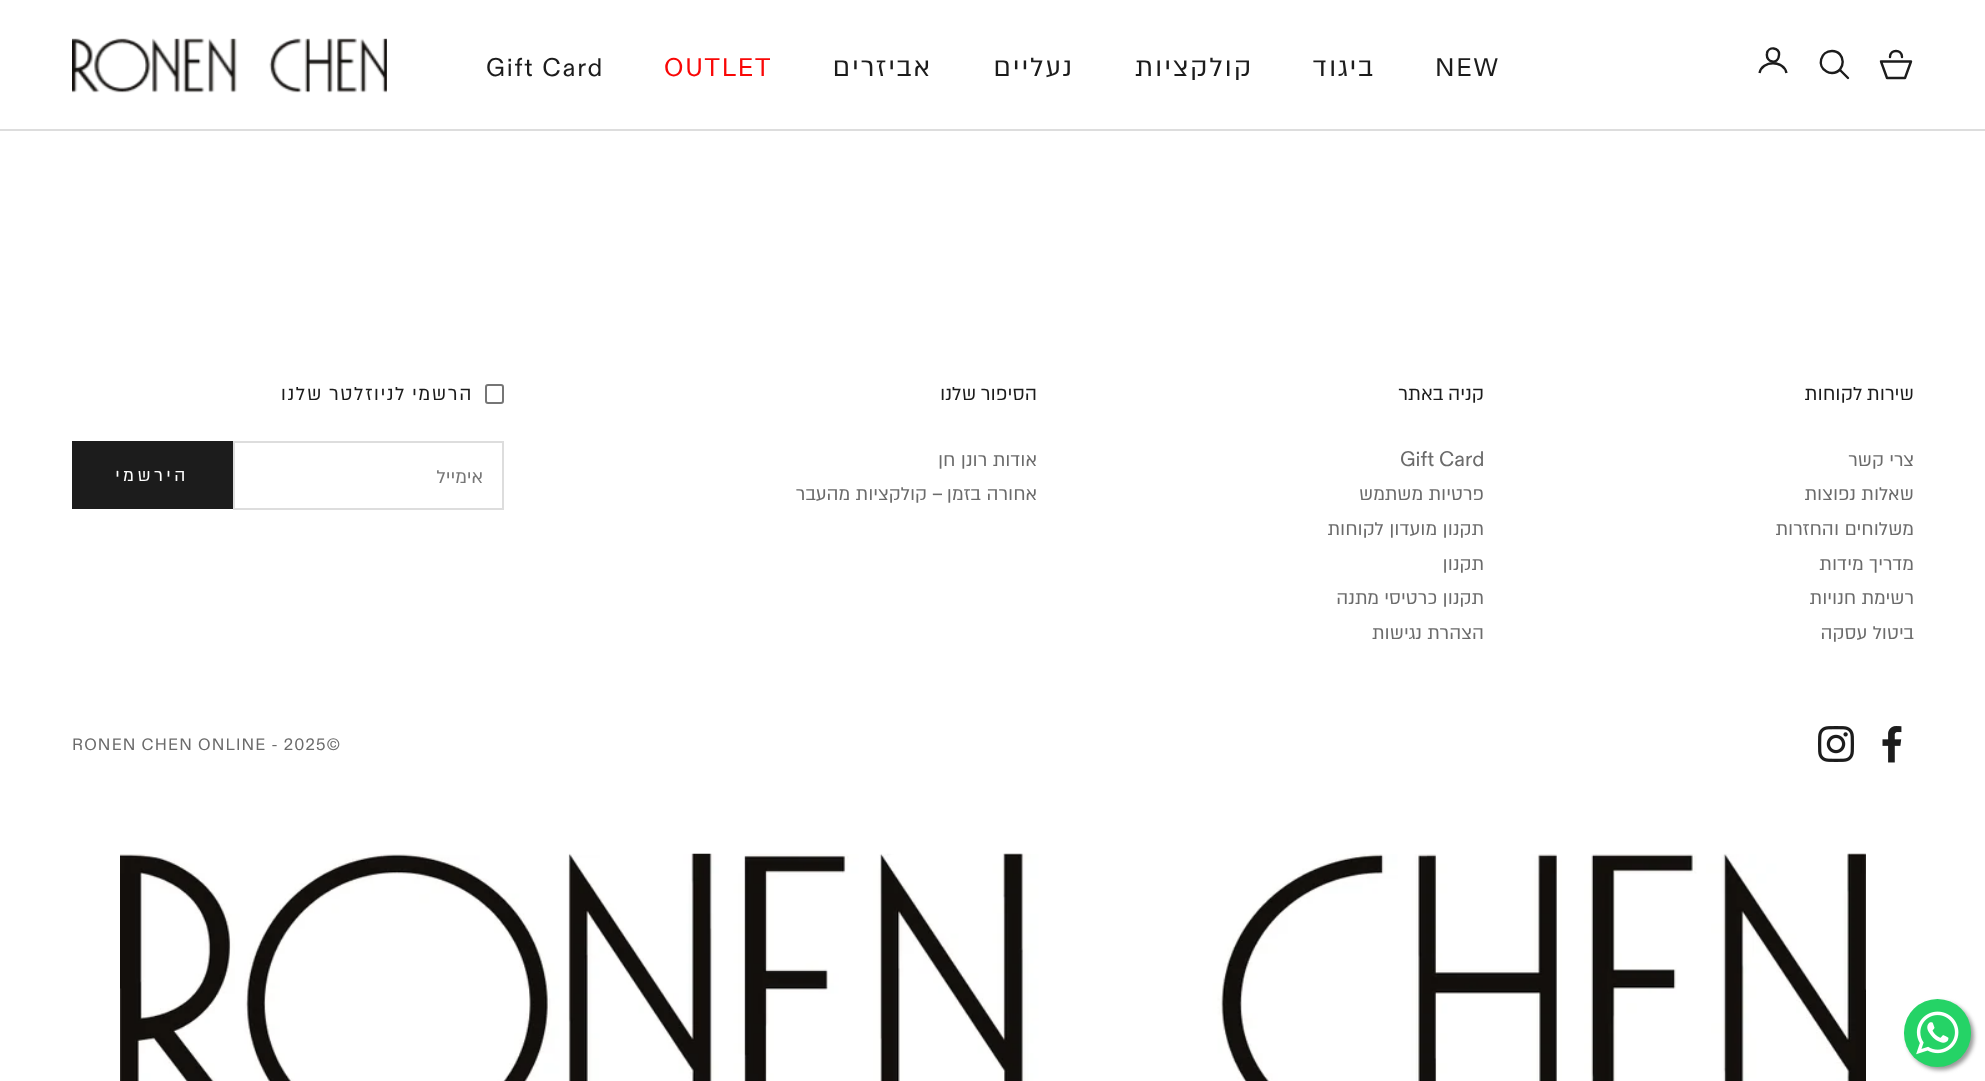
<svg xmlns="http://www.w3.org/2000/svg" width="1985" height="1081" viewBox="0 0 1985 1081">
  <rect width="100%" height="100%" fill="rgb(255,255,255)"/>
  <rect x="0" y="129" width="1985" height="2" fill="rgb(221,221,221)"/>
  <path d="M1881 61.5H1911L1905 78H1887ZM1902 57C1902 49 1890 49 1890 57" fill="none" stroke="rgb(28,28,28)" stroke-width="2.4" stroke-linecap="round" stroke-linejoin="round"/>
  <path d="M1832 51C1820.5 51 1816.5 66 1826.5 71.5C1828 72.5 1830 73 1832 73C1846.5 72.5 1846 51 1832 51Z" fill="none" stroke="rgb(28,28,28)" stroke-width="2.4"/>
  <path d="M1840.5 70.5L1848 78" fill="none" stroke="rgb(28,28,28)" stroke-width="2.4" stroke-linecap="round"/>
  <path d="M1779 55C1778.5 65 1765.5 63 1767 53.5C1768 46 1780 47 1779 55Z" fill="none" stroke="rgb(28,28,28)" stroke-width="2.4" stroke-linecap="round" stroke-linejoin="round"/>
  <path d="M1759.5 73C1762 60 1784 60 1786.5 73" fill="none" stroke="rgb(28,28,28)" stroke-width="2.4"/>
  <text x="1435" y="76" font-family="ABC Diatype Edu" font-size="25.5" letter-spacing="1.75" fill="rgb(28,28,28)">NEW</text>
  <g font-family="'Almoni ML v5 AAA'" font-size="30" letter-spacing="2" direction="rtl" fill="rgb(28,28,28)">
    <text x="1375" y="76">ביגוד</text>
    <text x="1253" y="76">קולקציות</text>
    <text x="1074" y="76">נעליים</text>
    <text x="932" y="76">אביזרים</text>
  </g>
  <text x="664" y="76" font-family="ABC Diatype Edu" font-size="25.5" letter-spacing="1.75" fill="rgb(249,7,6)">OUTLET</text>
  <text x="486" y="76" font-family="ABC Diatype Edu" font-size="25.5" letter-spacing="1.75" fill="rgb(28,28,28)">Gift Card</text>
  <image x="72" y="38" width="315" height="55" href="pic1.png"/>
  <text x="1914" y="400" word-spacing="-1" font-family="'Almoni ML v5 AAA'" font-size="21.5" direction="rtl" fill="rgb(28,28,28)">שירות לקוחות</text>
  <g font-family="'Almoni ML v5 AAA'" font-size="21" direction="rtl" fill="rgb(107,107,107)">
    <text>
      <tspan x="1914" y="466">צרי קשר</tspan>
      <tspan x="1914" y="500">שאלות נפוצות</tspan>
      <tspan x="1914" y="535">משלוחים והחזרות</tspan>
      <tspan x="1914" y="570">מדריך מידות</tspan>
      <tspan x="1914" y="604">רשימת חנויות</tspan>
      <tspan x="1914" y="639">ביטול עסקה</tspan>
    </text>
  </g>
  <text x="1484" y="400" word-spacing="-1" font-family="'Almoni ML v5 AAA'" font-size="21.5" direction="rtl" fill="rgb(28,28,28)">קניה באתר</text>
  <text x="1400" y="466" font-family="ABC Diatype Edu" font-size="21" fill="rgb(107,107,107)">Gift Card</text>
  <g font-family="'Almoni ML v5 AAA'" font-size="21" direction="rtl" fill="rgb(107,107,107)">
    <text>
      <tspan x="1484" y="500">פרטיות משתמש</tspan>
      <tspan x="1484" y="535">תקנון מועדון לקוחות</tspan>
      <tspan x="1484" y="570">תקנון</tspan>
      <tspan x="1484" y="604">תקנון כרטיסי מתנה</tspan>
      <tspan x="1484" y="639">הצהרת נגישות</tspan>
    </text>
  </g>
  <text x="1037" y="400" word-spacing="-1" font-family="'Almoni ML v5 AAA'" font-size="21.5" direction="rtl" fill="rgb(28,28,28)">הסיפור שלנו</text>
  <g font-family="'Almoni ML v5 AAA'" font-size="21" direction="rtl" fill="rgb(107,107,107)">
    <text>
      <tspan x="1037" y="466">אודות רונן חן</tspan>
      <tspan x="1037" y="500">אחורה בזמן</tspan>
    </text>
  </g>
  <text x="943" y="500" font-family="ABC Diatype Edu" font-size="21" direction="rtl" fill="rgb(107,107,107)">–</text>
  <text x="927" y="500" font-family="'Almoni ML v5 AAA'" font-size="21" direction="rtl" fill="rgb(107,107,107)">קולקציות מהעבר</text>
  <rect x="486" y="385" width="17" height="18" rx="2" fill="none" stroke="rgb(118,118,118)" stroke-width="2"/>
  <text x="473" y="400" word-spacing="-1" font-family="'Almoni ML v5 AAA'" font-size="21.5" letter-spacing="1.5" direction="rtl" fill="rgb(28,28,28)">הרשמי לניוזלטר שלנו</text>
  <rect x="234" y="442" width="269" height="67" fill="none" stroke="rgb(221,221,221)" stroke-width="2"/>
  <text x="483" y="483" font-family="'Almoni ML v5 AAA'" font-size="21" direction="rtl" fill="rgb(119,119,119)">אימייל</text>
  <rect x="73" y="442" width="159" height="66" fill="rgb(28,28,28)" stroke="rgb(28,28,28)" stroke-width="2"/>
  <text x="189" y="481" font-family="'Almoni ML v5 AAA'" font-size="19.5" letter-spacing="3.5" direction="rtl" fill="rgb(255,255,255)">הירשמי</text>
  <image x="1882" y="726" width="20" height="37" href="pic2.png"/>
  <image x="1818" y="726" width="36" height="36" href="pic3.png"/>
  <text x="72" y="750" font-family="ABC Diatype Edu" font-size="16.5" letter-spacing="1.15" fill="rgb(107,107,107)">RONEN CHEN ONLINE - 2025©</text>
  <image x="120" y="853" width="1746" height="228" href="pic4.png"/>
  <rect x="1907" y="1002" width="67" height="68" rx="33.5" fill="rgb(153,153,153)" filter="blur(2px)"/>
  <rect x="1904" y="999" width="67" height="68" rx="33.5" fill="rgb(37,211,102)"/>
  <image x="1916" y="1011" width="43" height="44" href="pic5.png"/>
</svg>
